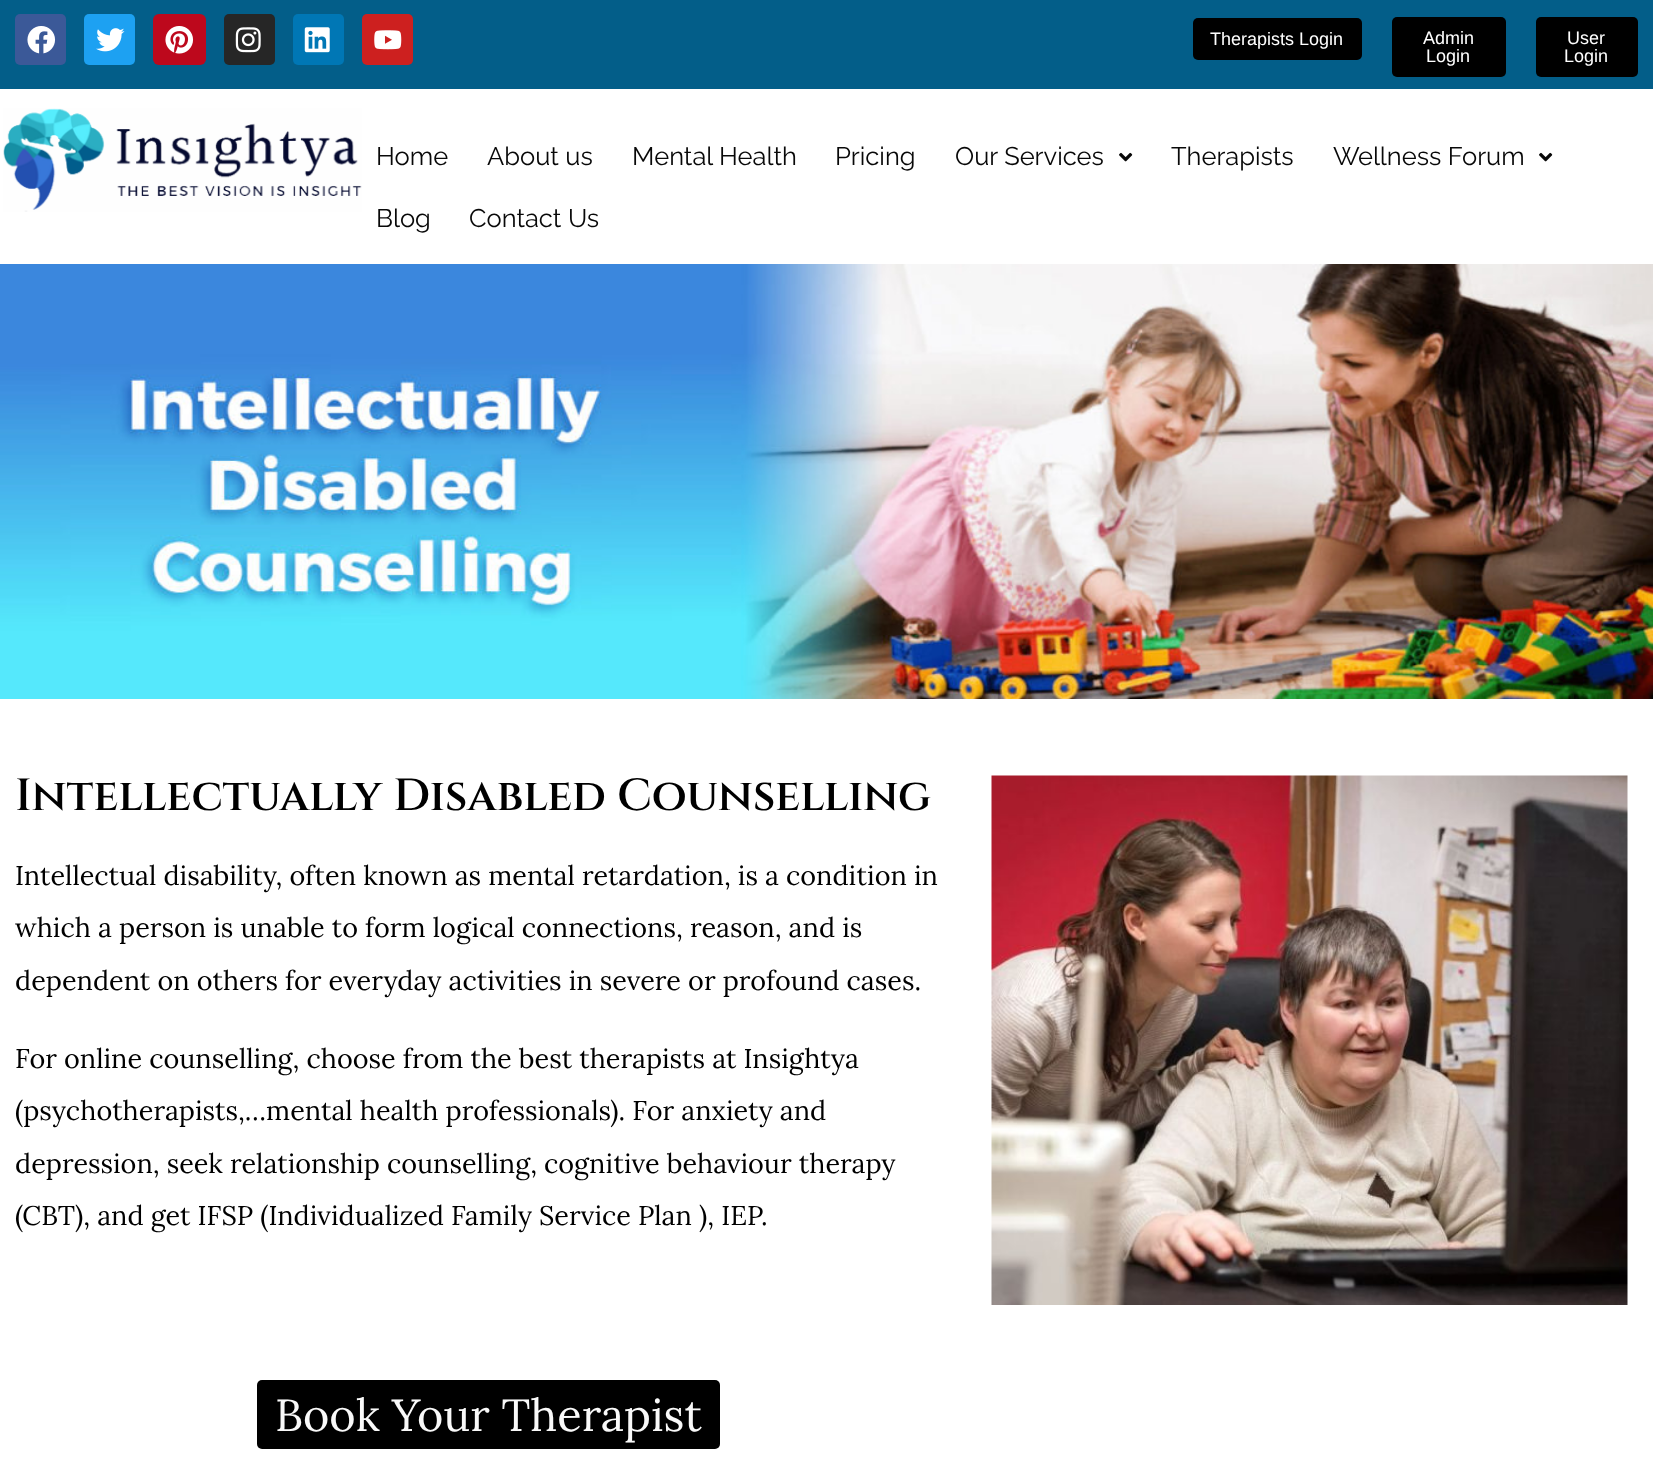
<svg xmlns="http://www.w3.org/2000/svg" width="1653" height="1479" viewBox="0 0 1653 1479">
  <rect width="100%" height="100%" fill="rgb(255,255,255)"/>
  <rect x="0" y="0" width="1653" height="89" fill="rgb(3,94,137)"/>
  <rect x="15" y="14" width="51" height="51" rx="5" fill="rgb(59,89,152)"/>
  <image x="27" y="26" width="29" height="28" href="pic1.png"/>
  <rect x="84" y="14" width="51" height="51" rx="5" fill="rgb(29,161,242)"/>
  <image x="96" y="28" width="29" height="24" href="pic2.png"/>
  <rect x="153" y="14" width="53" height="51" rx="6" fill="rgb(189,8,28)"/>
  <image x="165" y="26" width="29" height="28" href="pic3.png"/>
  <rect x="224" y="14" width="51" height="51" rx="5" fill="rgb(38,38,38)"/>
  <image x="235" y="27" width="26" height="26" href="pic4.png"/>
  <rect x="293" y="14" width="51" height="51" rx="5" fill="rgb(0,119,181)"/>
  <image x="304" y="27" width="26" height="26" href="pic5.png"/>
  <rect x="362" y="14" width="51" height="51" rx="5" fill="rgb(205,32,31)"/>
  <image x="374" y="30" width="28" height="20" href="pic6.png"/>
  <rect x="1193" y="18" width="169" height="42" rx="5" fill="rgb(0,0,0)"/>
  <text x="1210" y="45" font-family="Liberation Sans" font-size="18" fill="rgb(255,255,255)">Therapists Login</text>
  <rect x="1392" y="17" width="114" height="60" rx="5" fill="rgb(0,0,0)"/>
  <g font-family="Liberation Sans" font-size="18" fill="rgb(255,255,255)">
    <text x="1423" y="44">Admin</text>
    <text x="1426" y="62">Login</text>
  </g>
  <rect x="1536" y="17" width="102" height="60" rx="5" fill="rgb(0,0,0)"/>
  <g font-family="Liberation Sans" font-size="18" fill="rgb(255,255,255)">
    <text x="1567" y="44">User</text>
    <text x="1564" y="62">Login</text>
  </g>
  <image x="3" y="108" width="359" height="104" href="pic7.png"/>
  <g font-family="Raleway" font-size="25.5" font-weight="100" fill="rgb(8,8,8)">
    <text x="376" y="165">Home</text>
    <text x="487" y="165">About us</text>
    <text x="632" y="165">Mental Health</text>
    <text x="835" y="165">Pricing</text>
    <text x="955" y="165">Our Services</text>
  </g>
  <image x="1119" y="152" width="14" height="10" href="pic8.png"/>
  <g font-family="Raleway" font-size="25.5" font-weight="100" fill="rgb(8,8,8)">
    <text x="1171" y="165">Therapists</text>
    <text x="1333" y="165">Wellness Forum</text>
  </g>
  <image x="1539" y="152" width="14" height="10" href="pic8.png"/>
  <g font-family="Raleway" font-size="25.5" font-weight="100" fill="rgb(8,8,8)">
    <text x="376" y="227">Blog</text>
    <text x="469" y="227">Contact Us</text>
  </g>
  <image x="0" y="264" width="1653" height="435" href="pic9.png"/>
  <text x="15" y="810" font-family="Cinzel" font-size="45" font-weight="600" fill="rgb(0,0,0)">Intellectually Disabled Counselling</text>
  <g font-family="Lora" font-size="27" fill="rgb(0,0,0)">
    <text>
      <tspan x="15" y="885">Intellectual disability, often known as mental retardation, is a condition in</tspan>
      <tspan x="15" y="937">which a person is unable to form logical connections, reason, and is</tspan>
      <tspan x="15" y="990">dependent on others for everyday activities in severe or profound cases.</tspan>
    </text>
    <text>
      <tspan x="15" y="1068">For online counselling, choose from the best therapists at Insightya</tspan>
      <tspan x="15" y="1120">(psychotherapists,…mental health professionals). For anxiety and</tspan>
      <tspan x="15" y="1173">depression, seek relationship counselling, cognitive behaviour therapy</tspan>
      <tspan x="15" y="1225">(CBT), and get IFSP (Individualized Family Service Plan ), IEP.</tspan>
    </text>
  </g>
  <rect x="257" y="1380" width="463" height="69" rx="5" fill="rgb(0,0,0)"/>
  <text x="275" y="1431" font-family="Lora" font-size="45" fill="rgb(249,249,249)">Book Your Therapist</text>
  <image x="991" y="775" width="637" height="530" href="pic10.png"/>
</svg>
